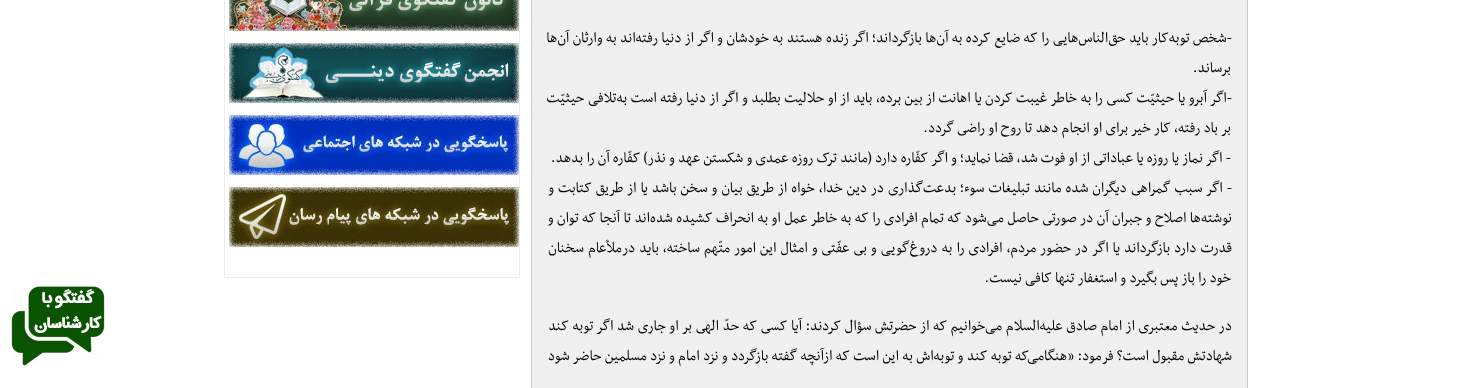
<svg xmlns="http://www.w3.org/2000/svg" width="1471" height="388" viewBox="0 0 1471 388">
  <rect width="100%" height="100%" fill="rgb(255,255,255)"/>
  <rect x="531.5" y="-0.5" width="716" height="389" fill="rgb(240,240,240)" stroke="rgb(204,204,204)"/>
  <g font-family="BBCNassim" font-size="17" direction="rtl" fill="rgb(0,0,0)">
    <text x="1232" y="42" word-spacing="0.2">-شخص توبه‌کار باید حق‌الناس‌هایی را که ضایع کرده به آن‌ها بازگرداند؛ اگر زنده هستند به خودشان و اگر از دنیا رفته‌اند به وارثان آن‌ها</text>
    <text x="1231" y="72">برساند.</text>
    <text x="1232" y="102" word-spacing="0.25">-اگر آبرو یا حیثیّت کسى را به خاطر غیبت کردن یا اهانت از بین برده، باید از او حلالیت بطلبد و اگر از دنیا رفته است به‌تلافی حیثیّت</text>
    <text>
      <tspan x="1231" y="132">بر باد رفته، کار خیر براى او انجام دهد تا روح او راضى گردد.</tspan>
      <tspan x="1231" y="162">- اگر نماز یا روزه یا عباداتى از او فوت شد، قضا نماید؛ و اگر کفّاره دارد (مانند ترک روزه عمدی و شکستن عهد و نذر) کفّاره آن را بدهد.</tspan>
    </text>
    <text>
      <tspan x="1232" y="192" word-spacing="0.75">- اگر سبب گمراهى دیگران شده مانند تبلیغات سوء؛ بدعت‌گذاری در دین خدا، خواه از طریق بیان و سخن باشد یا از طریق کتابت و</tspan>
      <tspan x="1232" y="222" word-spacing="0.2">نوشته‌ها اصلاح و جبران آن در صورتى حاصل می‌شود که تمام افرادى را که به خاطر عمل او به انحراف کشیده شده‌اند تا آنجا که توان و</tspan>
      <tspan x="1232" y="252" word-spacing="0.8">قدرت دارد بازگرداند یا اگر در حضور مردم، افرادى را به‌ دروغ‌گویی و بى عفّتى و امثال این امور متّهم ساخته، باید درملأعام سخنان</tspan>
    </text>
    <text x="1231" y="282">خود را باز پس بگیرد و استغفار تنها کافی نیست.</text>
    <text>
      <tspan x="1232" y="330" word-spacing="0.4">در حدیث معتبرى از امام صادق علیه‌السلام می‌خوانیم که از حضرتش سؤال کردند: آیا کسى که حدّ الهى بر او جارى شد اگر توبه کند</tspan>
      <tspan x="1232" y="360" word-spacing="0.1">شهادتش مقبول است؟ فرمود: «هنگامی‌که توبه کند و توبه‌اش به این است که ازآنچه گفته بازگردد و نزد امام و نزد مسلمین حاضر شود</tspan>
    </text>
  </g>
  <rect x="224.5" y="-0.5" width="295" height="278" fill="none" stroke="rgb(238,236,236)"/>
  <image x="229" y="0" width="290" height="31" href="pic1.png"/>
  <image x="229" y="43" width="290" height="60" href="pic2.png"/>
  <image x="229" y="115" width="290" height="60" href="pic3.png"/>
  <image x="229" y="187" width="290" height="60" href="pic4.png"/>
  <image x="11" y="286" width="94" height="80" href="pic5.png"/>
</svg>
